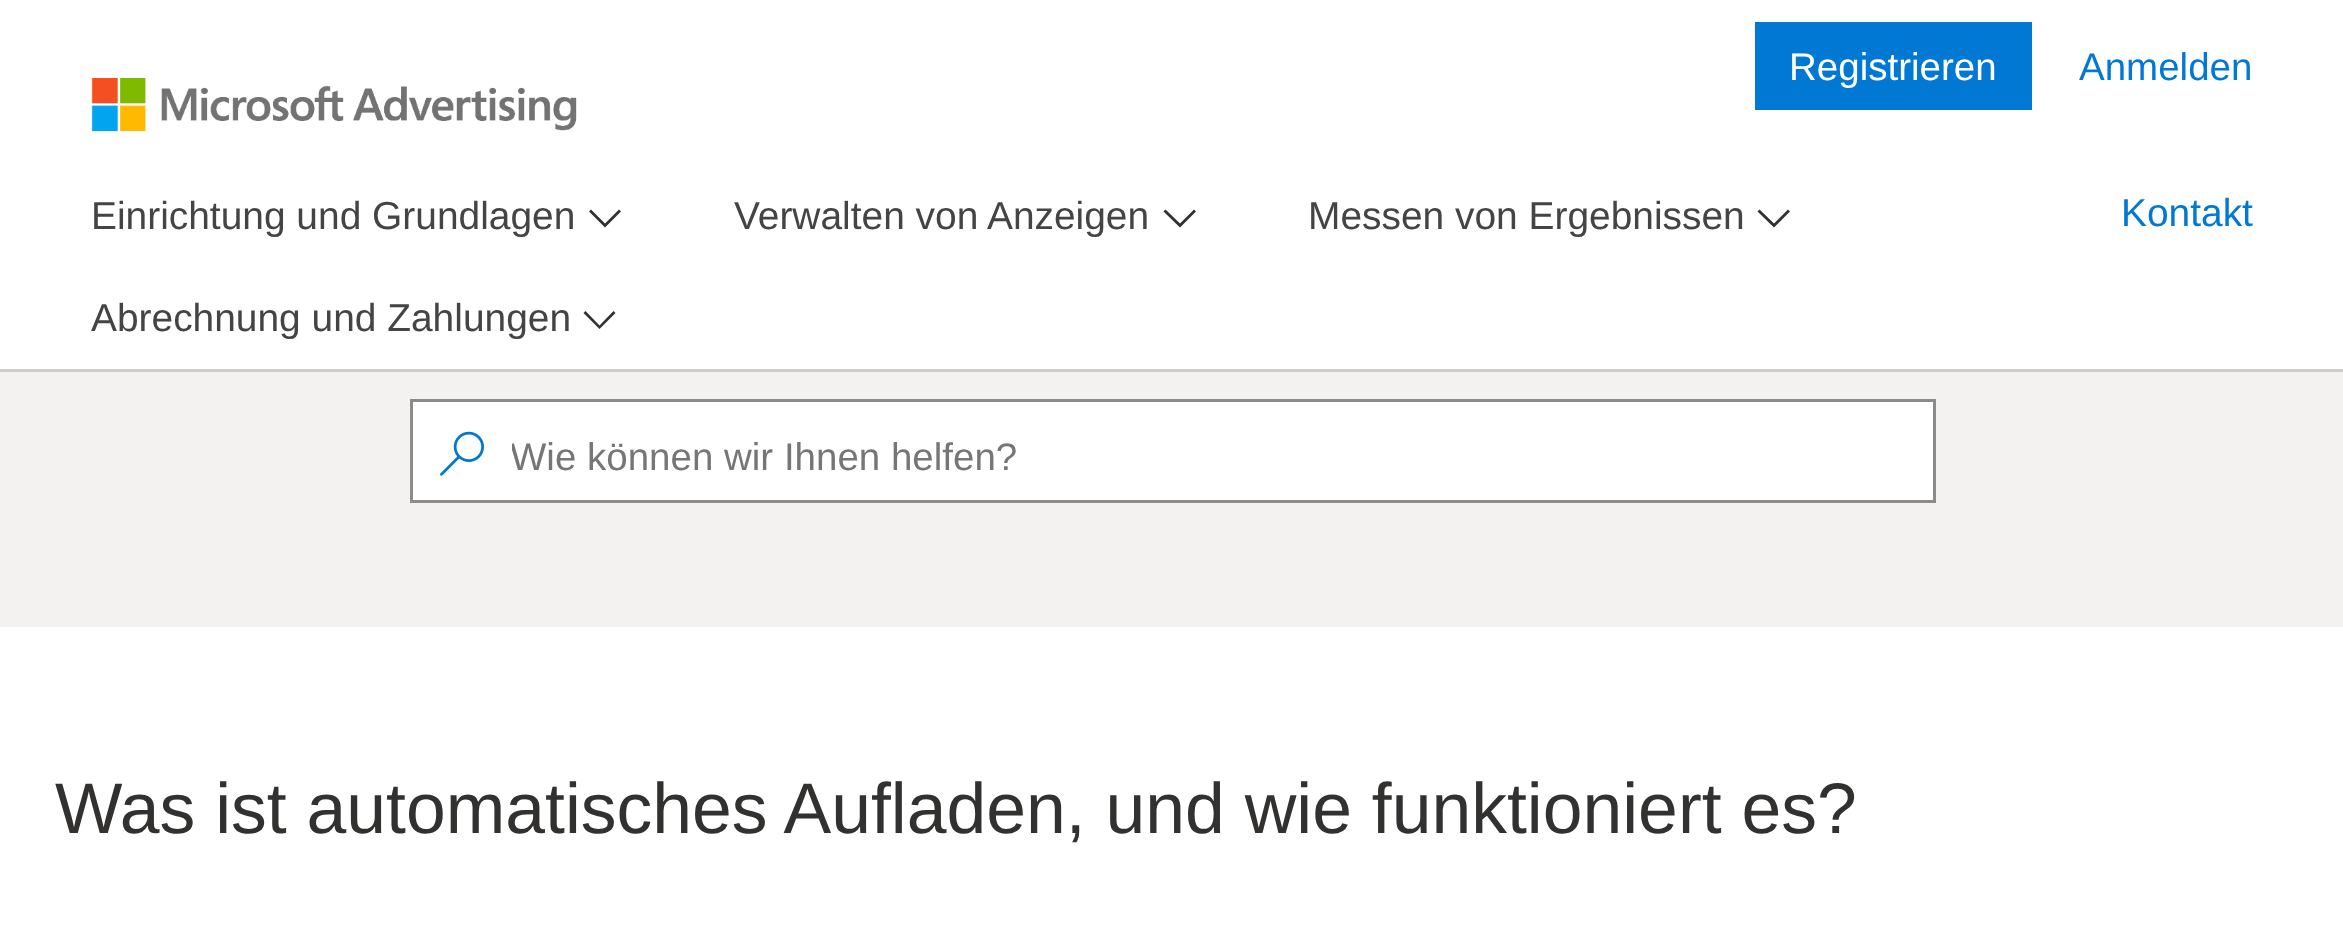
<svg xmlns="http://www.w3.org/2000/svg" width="2343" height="934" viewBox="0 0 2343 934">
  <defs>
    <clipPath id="clip1"><rect x="512" y="435" width="1289" height="44"/></clipPath>
  </defs>
  <rect width="100%" height="100%" fill="rgb(255,255,255)"/>
  <rect x="1755" y="22" width="277" height="88" fill="rgb(0,120,212)"/>
  <text x="1789" y="80" font-family="Liberation Sans" font-size="38.5" fill="rgb(255,255,255)">Registrieren</text>
  <text x="2079" y="80" font-family="Liberation Sans" font-size="38.5" fill="rgb(0,120,212)">Anmelden</text>
  <image x="91" y="78" width="486" height="54" href="pic1.png"/>
  <rect x="0" y="369" width="2343" height="3" fill="rgb(204,204,204)"/>
  <text x="91" y="229" font-family="Liberation Sans" font-size="38.9" fill="rgb(68,68,68)">Einrichtung und Grundlagen</text>
  <path d="M605 227.5L589 211.5L591 209.5L605 223.5L619 209.5L621 211.5Z" fill="rgb(50,49,48)"/>
  <text x="734" y="229" font-family="Liberation Sans" font-size="38.9" fill="rgb(68,68,68)">Verwalten von Anzeigen</text>
  <path d="M1180 227.5L1163.5 211.5L1165.5 209.5L1180 223.5L1194 209.5L1196 211.5Z" fill="rgb(50,49,48)"/>
  <text x="1308" y="229" font-family="Liberation Sans" font-size="38.9" fill="rgb(68,68,68)">Messen von Ergebnissen</text>
  <path d="M1774 227.5L1757.5 211.5L1759.5 209.5L1774 223.5L1788 209.5L1790 211.5Z" fill="rgb(50,49,48)"/>
  <text x="2121" y="226" font-family="Liberation Sans" font-size="38.9" fill="rgb(0,120,212)">Kontakt</text>
  <text x="91" y="331" font-family="Liberation Sans" font-size="38.9" fill="rgb(68,68,68)">Abrechnung und Zahlungen</text>
  <path d="M599.5 329L583.5 313L585.5 311L599.5 325.5L613.5 311L615.5 313Z" fill="rgb(50,49,48)"/>
  <rect x="0" y="372" width="2343" height="255" fill="rgb(243,242,241)"/>
  <rect x="411.5" y="400.5" width="1523" height="101" fill="rgb(255,255,255)" stroke="rgb(139,139,139)" stroke-width="3"/>
  <image x="440" y="431" width="44" height="45" href="pic2.png"/>
  <g clip-path="url(#clip1)">
    <text x="510" y="470" font-family="Liberation Sans" font-size="38.5" fill="rgb(118,118,118)">Wie können wir Ihnen helfen?</text>
  </g>
  <text x="55" y="833" font-family="Liberation Sans" font-size="71.5" fill="rgb(50,49,48)">Was ist automatisches Aufladen, und wie funktioniert es?</text>
</svg>
